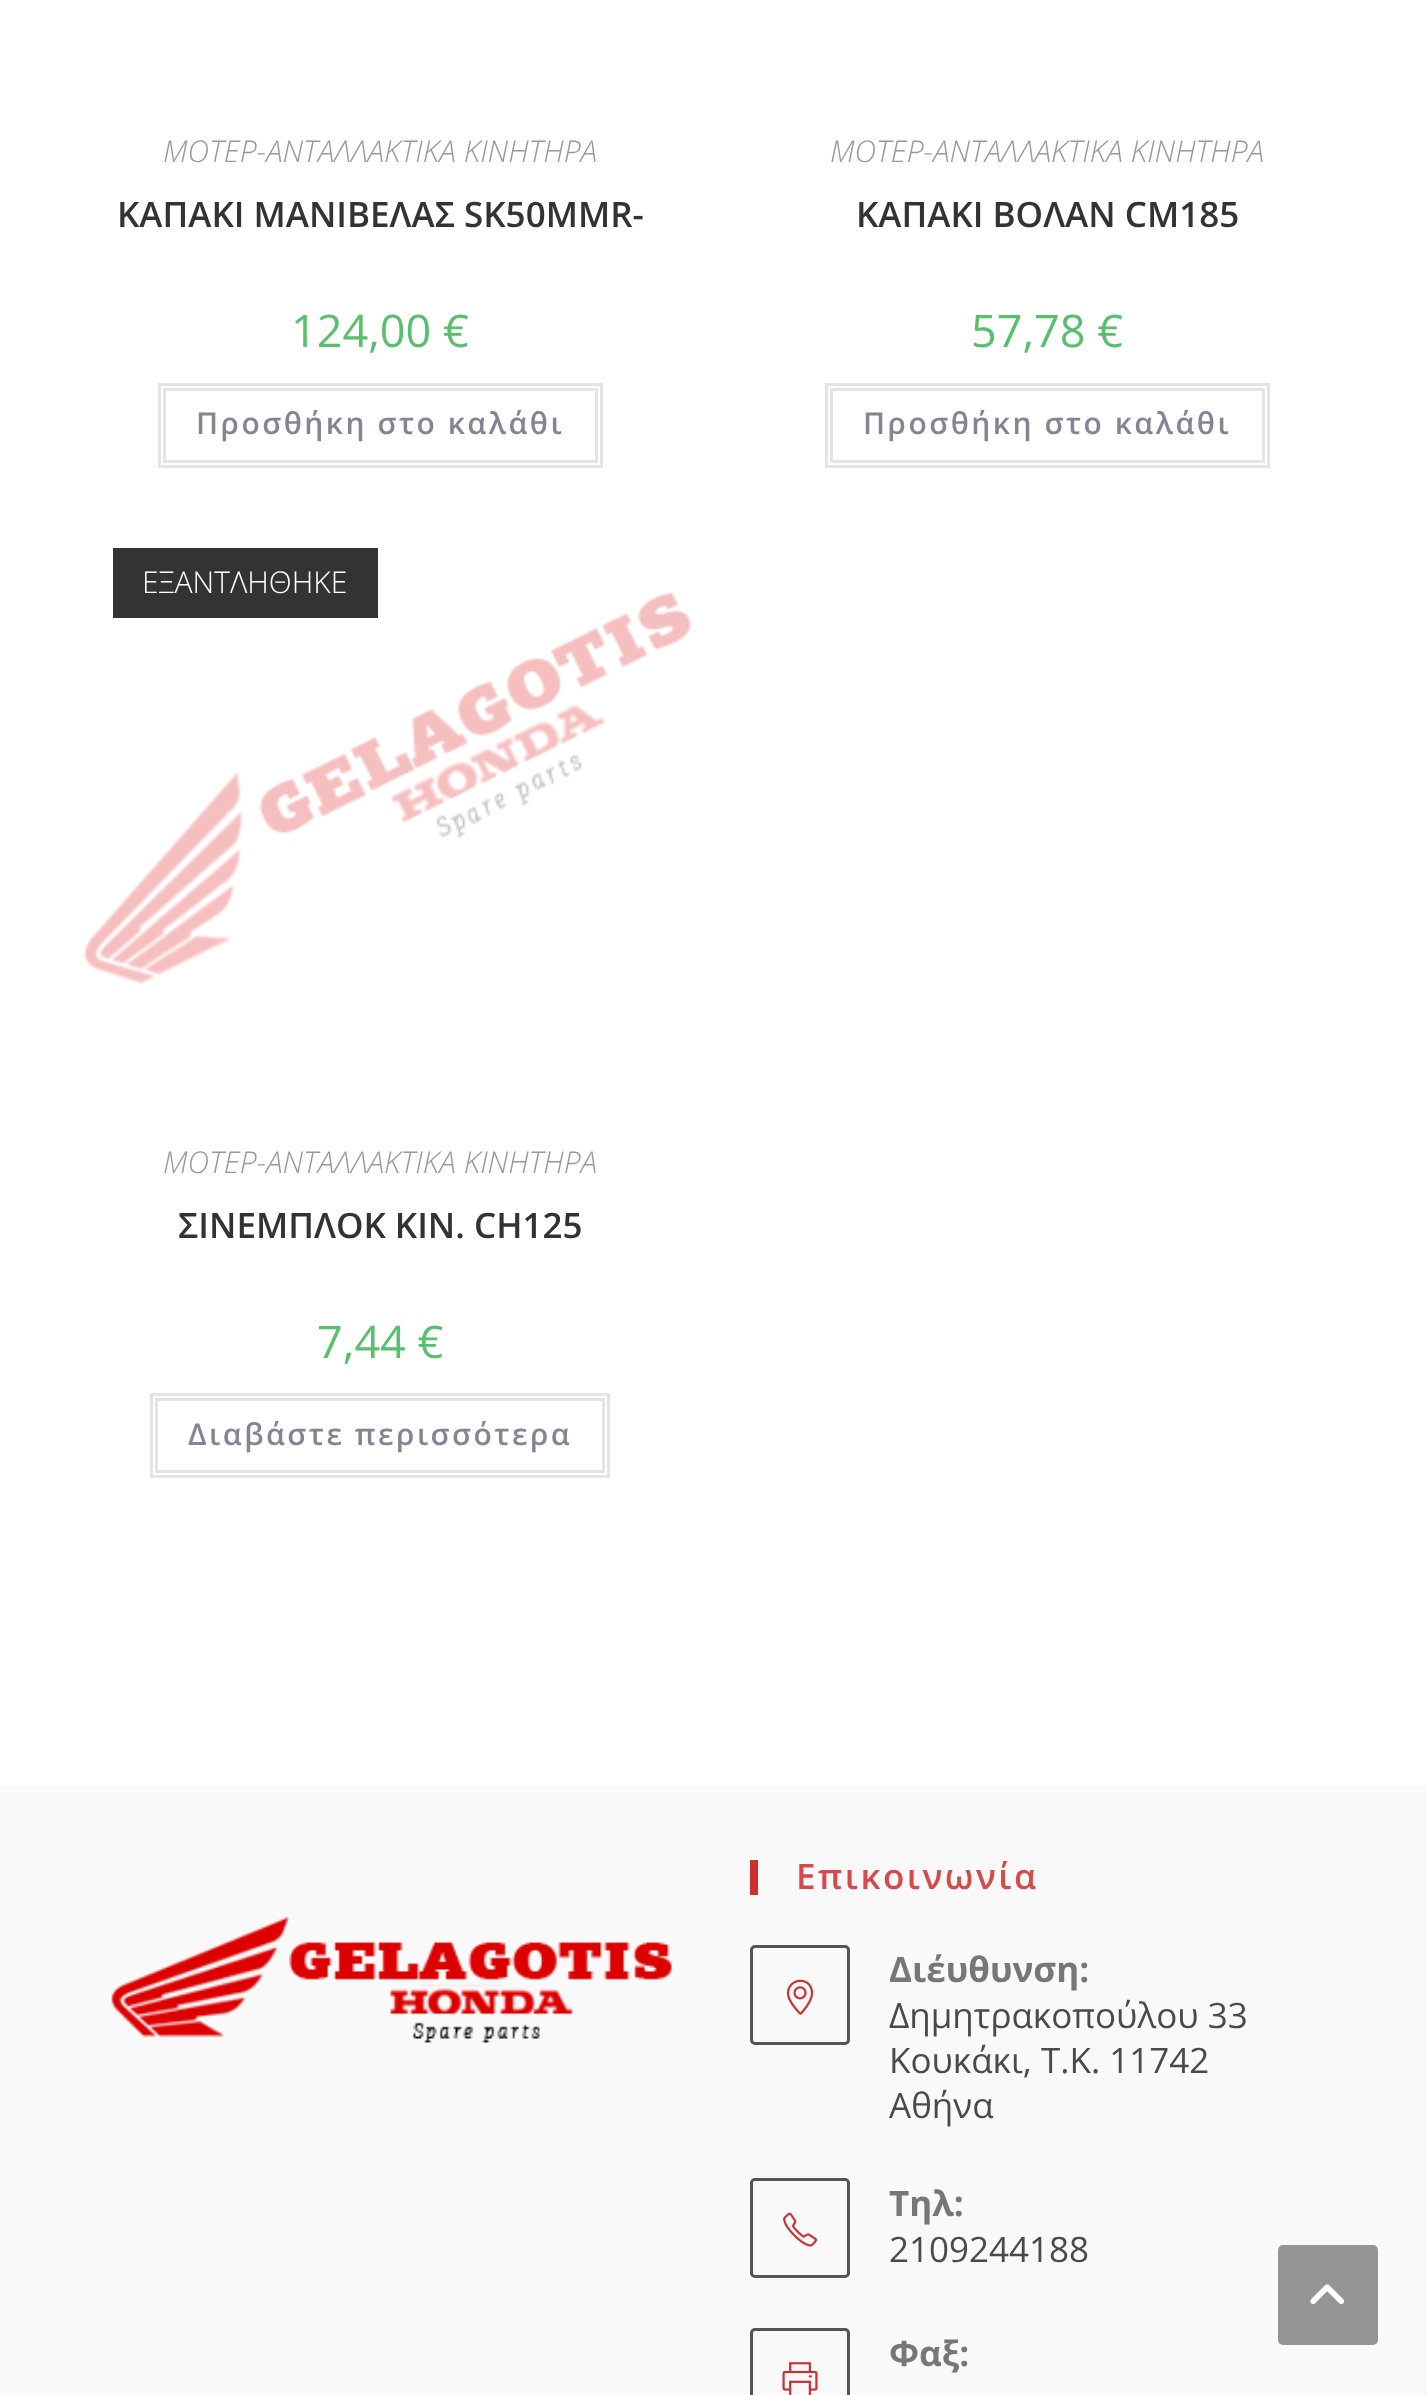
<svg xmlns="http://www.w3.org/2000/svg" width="1427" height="2395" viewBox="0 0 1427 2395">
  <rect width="100%" height="100%" fill="rgb(255,255,255)"/>
  <text x="163" y="162" font-family="Open Sans" font-size="30" font-weight="300" font-style="italic" fill="rgb(153,153,153)">ΜΟΤΕΡ-ΑΝΤΑΛΛΑΚΤΙΚΑ ΚΙΝΗΤΗΡΑ</text>
  <text x="117" y="227" font-family="Open Sans" font-size="35" font-weight="600" fill="rgb(51,51,51)">KAΠΑΚΙ MAΝΙΒΕΛΑΣ SK50MMR-</text>
  <text x="291" y="347" font-family="Open Sans" font-size="45" fill="rgb(87,191,109)">124,00 €</text>
  <rect x="159.5" y="384.5" width="442" height="82" fill="none" stroke="rgb(228,228,228)" stroke-width="3"/>
  <rect x="164.5" y="389.5" width="432" height="72" fill="none" stroke="rgb(228,228,228)" stroke-width="3"/>
  <text x="196" y="434" font-family="Open Sans" font-size="30" font-weight="600" letter-spacing="2.5" fill="rgb(132,132,148)">Προσθήκη στο καλάθι</text>
  <text x="830" y="162" font-family="Open Sans" font-size="30" font-weight="300" font-style="italic" fill="rgb(153,153,153)">ΜΟΤΕΡ-ΑΝΤΑΛΛΑΚΤΙΚΑ ΚΙΝΗΤΗΡΑ</text>
  <text x="856" y="227" font-family="Open Sans" font-size="35" font-weight="600" fill="rgb(51,51,51)">KAΠΑΚΙ ΒΟΛΑΝ CM185</text>
  <text x="971" y="347" font-family="Open Sans" font-size="45" fill="rgb(87,191,109)">57,78 €</text>
  <rect x="826.5" y="384.5" width="442" height="82" fill="none" stroke="rgb(228,228,228)" stroke-width="3"/>
  <rect x="831.5" y="389.5" width="432" height="72" fill="none" stroke="rgb(228,228,228)" stroke-width="3"/>
  <text x="863" y="434" font-family="Open Sans" font-size="30" font-weight="600" letter-spacing="2.5" fill="rgb(132,132,148)">Προσθήκη στο καλάθι</text>
  <image x="83" y="592" width="609" height="392" href="pic1.png"/>
  <rect x="113" y="548" width="265" height="70" fill="rgb(51,51,51)"/>
  <text x="142" y="593" font-family="Open Sans" font-size="30" font-weight="300" fill="rgb(255,255,255)">ΕΞΑΝΤΛΗΘΗΚΕ</text>
  <text x="163" y="1173" font-family="Open Sans" font-size="30" font-weight="300" font-style="italic" fill="rgb(153,153,153)">ΜΟΤΕΡ-ΑΝΤΑΛΛΑΚΤΙΚΑ ΚΙΝΗΤΗΡΑ</text>
  <text x="178" y="1238" font-family="Open Sans" font-size="35" font-weight="600" fill="rgb(51,51,51)">ΣΙΝΕΜΠΛΟΚ ΚΙΝ. CH125</text>
  <text x="317" y="1358" font-family="Open Sans" font-size="45" fill="rgb(87,191,109)">7,44 €</text>
  <rect x="151.5" y="1394.5" width="457" height="82" fill="none" stroke="rgb(228,228,228)" stroke-width="3"/>
  <rect x="156.5" y="1399.5" width="447" height="72" fill="none" stroke="rgb(228,228,228)" stroke-width="3"/>
  <text x="188" y="1445" font-family="Open Sans" font-size="30" font-weight="600" letter-spacing="2.5" fill="rgb(132,132,148)">Διαβάστε περισσότερα</text>
  <rect x="0" y="1785" width="1427" height="610" fill="rgb(249,249,249)"/>
  <image x="111" y="1917" width="562" height="126" href="pic2.png"/>
  <rect x="750" y="1860" width="8" height="35" fill="rgb(207,46,46)"/>
  <text x="796" y="1889" font-family="Open Sans" font-size="35" font-weight="600" letter-spacing="2.5" fill="rgb(213,74,74)">Επικοινωνία</text>
  <rect x="751.5" y="1946.5" width="97" height="97" rx="3.5" fill="none" stroke="rgb(85,85,85)" stroke-width="3"/>
  <image x="786" y="1979" width="28" height="36" href="pic3.png"/>
  <text x="889" y="1982" font-family="Open Sans" font-size="35" font-weight="bold" fill="rgb(119,119,119)">Διέυθυνση:</text>
  <g font-family="Open Sans" font-size="35" fill="rgb(74,74,74)">
    <text>
      <tspan x="889" y="2028">Δημητρακοπούλου 33</tspan>
      <tspan x="889" y="2073">Κουκάκι, Τ.Κ. 11742</tspan>
      <tspan x="889" y="2118">Αθήνα</tspan>
    </text>
  </g>
  <rect x="751.5" y="2179.5" width="97" height="97" rx="3.5" fill="none" stroke="rgb(85,85,85)" stroke-width="3"/>
  <image x="783" y="2212" width="34" height="35" href="pic4.png"/>
  <text x="889" y="2216" font-family="Open Sans" font-size="35" font-weight="bold" fill="rgb(119,119,119)">Τηλ:</text>
  <text x="889" y="2262" font-family="Open Sans" font-size="35" fill="rgb(74,74,74)">2109244188</text>
  <rect x="751.5" y="2329.5" width="97" height="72" rx="3.5" fill="none" stroke="rgb(85,85,85)" stroke-width="3"/>
  <image x="782" y="2362" width="36" height="33" href="pic5.png"/>
  <text x="889" y="2366" font-family="Open Sans" font-size="35" font-weight="bold" fill="rgb(119,119,119)">Φαξ:</text>
  <rect x="1278" y="2245" width="100" height="100" rx="5" fill="rgb(149,149,149)"/>
  <image x="1310" y="2284" width="34" height="20" href="pic6.png"/>
</svg>
